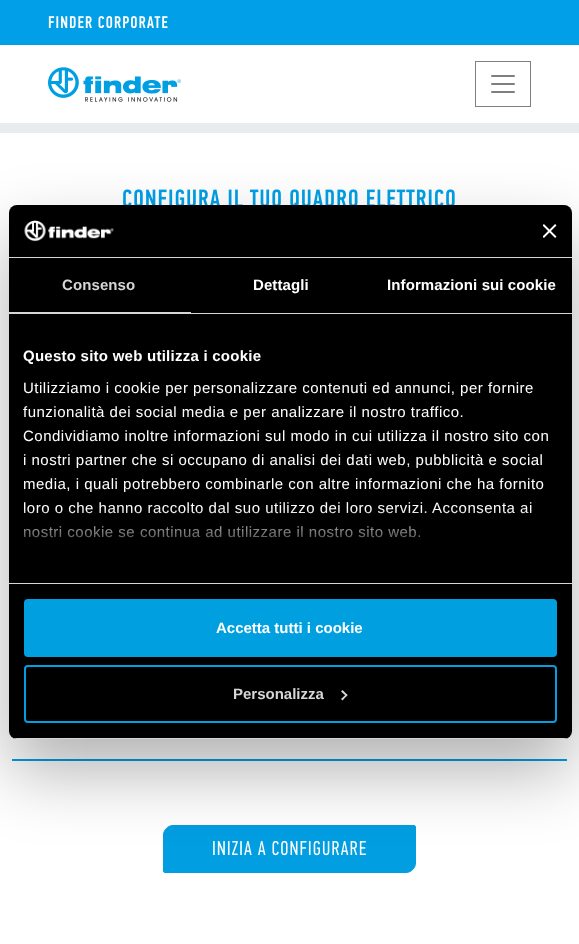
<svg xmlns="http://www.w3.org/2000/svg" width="579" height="944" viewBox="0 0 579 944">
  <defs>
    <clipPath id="clip1"><rect x="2" y="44" width="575" height="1"/></clipPath>
    <linearGradient id="g1" gradientUnits="userSpaceOnUse" x1="284" y1="583" x2="284" y2="508"><stop offset="0" stop-color="rgb(0,0,0)"/><stop offset="0.5" stop-color="rgb(0,0,0)" stop-opacity="0.8"/><stop offset="1" stop-color="rgb(0,0,0)" stop-opacity="0"/></linearGradient>
    <clipPath id="clip2"><rect x="9" y="205" width="563" height="534" rx="8"/></clipPath>
  </defs>
  <rect width="100%" height="100%" fill="rgb(255,255,255)"/>
  <rect x="0" y="0" width="579" height="45" fill="rgb(0,159,231)"/>
  <image x="48" y="16" width="120" height="13" href="pic1.png"/>
  <g clip-path="url(#clip1)">
    <rect x="0" y="46" width="579" height="78" fill="rgba(0,0,0,0.1)" filter="blur(2px)"/>
  </g>
  <image x="48" y="67" width="133" height="35" href="pic2.png"/>
  <rect x="475.5" y="61.5" width="55" height="45" fill="none" stroke="rgb(127,127,127)"/>
  <image x="491" y="75" width="24" height="18" href="pic3.png"/>
  <rect x="0" y="123" width="579" height="10" fill="rgb(233,236,239)"/>
  <image x="123" y="189" width="332" height="16" href="pic4.png"/>
  <rect x="12" y="759" width="555" height="2" fill="rgb(0,159,231)"/>
  <path d="M173 825.5H414C415 825.5 415.5 826 415.5 827V863C415.5 868 411 872.5 406 872.5H165C164 872.5 163.5 872 163.5 871V835C163.5 830 168 825.5 173 825.5Z" fill="rgb(1,158,225)" stroke="rgb(1,158,225)"/>
  <image x="213" y="841" width="153" height="15" href="pic5.png"/>
  <rect x="9" y="237" width="563" height="534" rx="8" fill="rgba(0,0,0,0.3)" filter="blur(34px)"/>
  <rect x="9" y="205" width="563" height="534" rx="8" fill="rgb(0,0,0)"/>
  <rect x="9" y="257" width="563" height="1" fill="rgb(214,214,214)"/>
  <image x="24" y="220" width="90" height="22" href="pic6.png"/>
  <image x="543" y="224" width="14" height="14" href="pic7.png"/>
  <rect x="9" y="313" width="563" height="1" fill="rgb(214,214,214)"/>
  <rect x="9" y="312" width="182" height="1" fill="rgb(214,214,214)"/>
  <text x="62" y="290" font-family="Liberation Sans" font-size="15" font-weight="bold" letter-spacing="0.1" fill="rgb(214,214,214)">Consenso</text>
  <g font-family="Liberation Sans" font-size="15" font-weight="bold" letter-spacing="0.1" fill="rgb(255,255,255)">
    <text x="253" y="290">Dettagli</text>
    <text x="387" y="290">Informazioni sui cookie</text>
  </g>
  <rect x="9" y="583" width="563" height="1" fill="rgb(214,214,214)"/>
  <text x="23" y="361" font-family="Liberation Sans" font-size="15" font-weight="bold" letter-spacing="0.25" fill="rgb(255,255,255)">Questo sito web utilizza i cookie</text>
  <g font-family="Liberation Sans" font-size="15" letter-spacing="0.5" fill="rgb(255,255,255)">
    <text>
      <tspan x="23" y="393">Utilizziamo i cookie per personalizzare contenuti ed annunci, per fornire</tspan>
      <tspan x="23" y="417">funzionalità dei social media e per analizzare il nostro traffico.</tspan>
      <tspan x="23" y="441">Condividiamo inoltre informazioni sul modo in cui utilizza il nostro sito con</tspan>
      <tspan x="23" y="465">i nostri partner che si occupano di analisi dei dati web, pubblicità e social</tspan>
      <tspan x="23" y="489">media, i quali potrebbero combinarle con altre informazioni che ha fornito</tspan>
      <tspan x="23" y="513">loro o che hanno raccolto dal suo utilizzo dei loro servizi. Acconsenta ai</tspan>
      <tspan x="23" y="537">nostri cookie se continua ad utilizzare il nostro sito web.</tspan>
    </text>
  </g>
  <rect x="24" y="509" width="508" height="29" fill="url(#g1)"/>
  <g clip-path="url(#clip2)">
    <rect x="9" y="738" width="563" height="1" fill="rgb(214,214,214)"/>
  </g>
  <rect x="25" y="600" width="531" height="56" rx="3" fill="rgb(0,159,223)" stroke="rgb(0,159,223)" stroke-width="2"/>
  <text x="216" y="633" font-family="Liberation Sans" font-size="15" font-weight="bold" fill="rgb(255,255,255)">Accetta tutti i cookie</text>
  <rect x="25" y="666" width="531" height="56" rx="3" fill="none" stroke="rgb(0,159,223)" stroke-width="2"/>
  <text x="233" y="699" font-family="Liberation Sans" font-size="15" font-weight="bold" fill="rgb(214,214,214)">Personalizza</text>
  <path d="M342.5 690L347.5 695L346.5 696.5L341 691.5Z" fill="rgb(217,217,217)"/>
  <path d="M346.5 694L347.5 695L342.5 700.5L341 699Z" fill="rgb(217,217,217)"/>
</svg>
